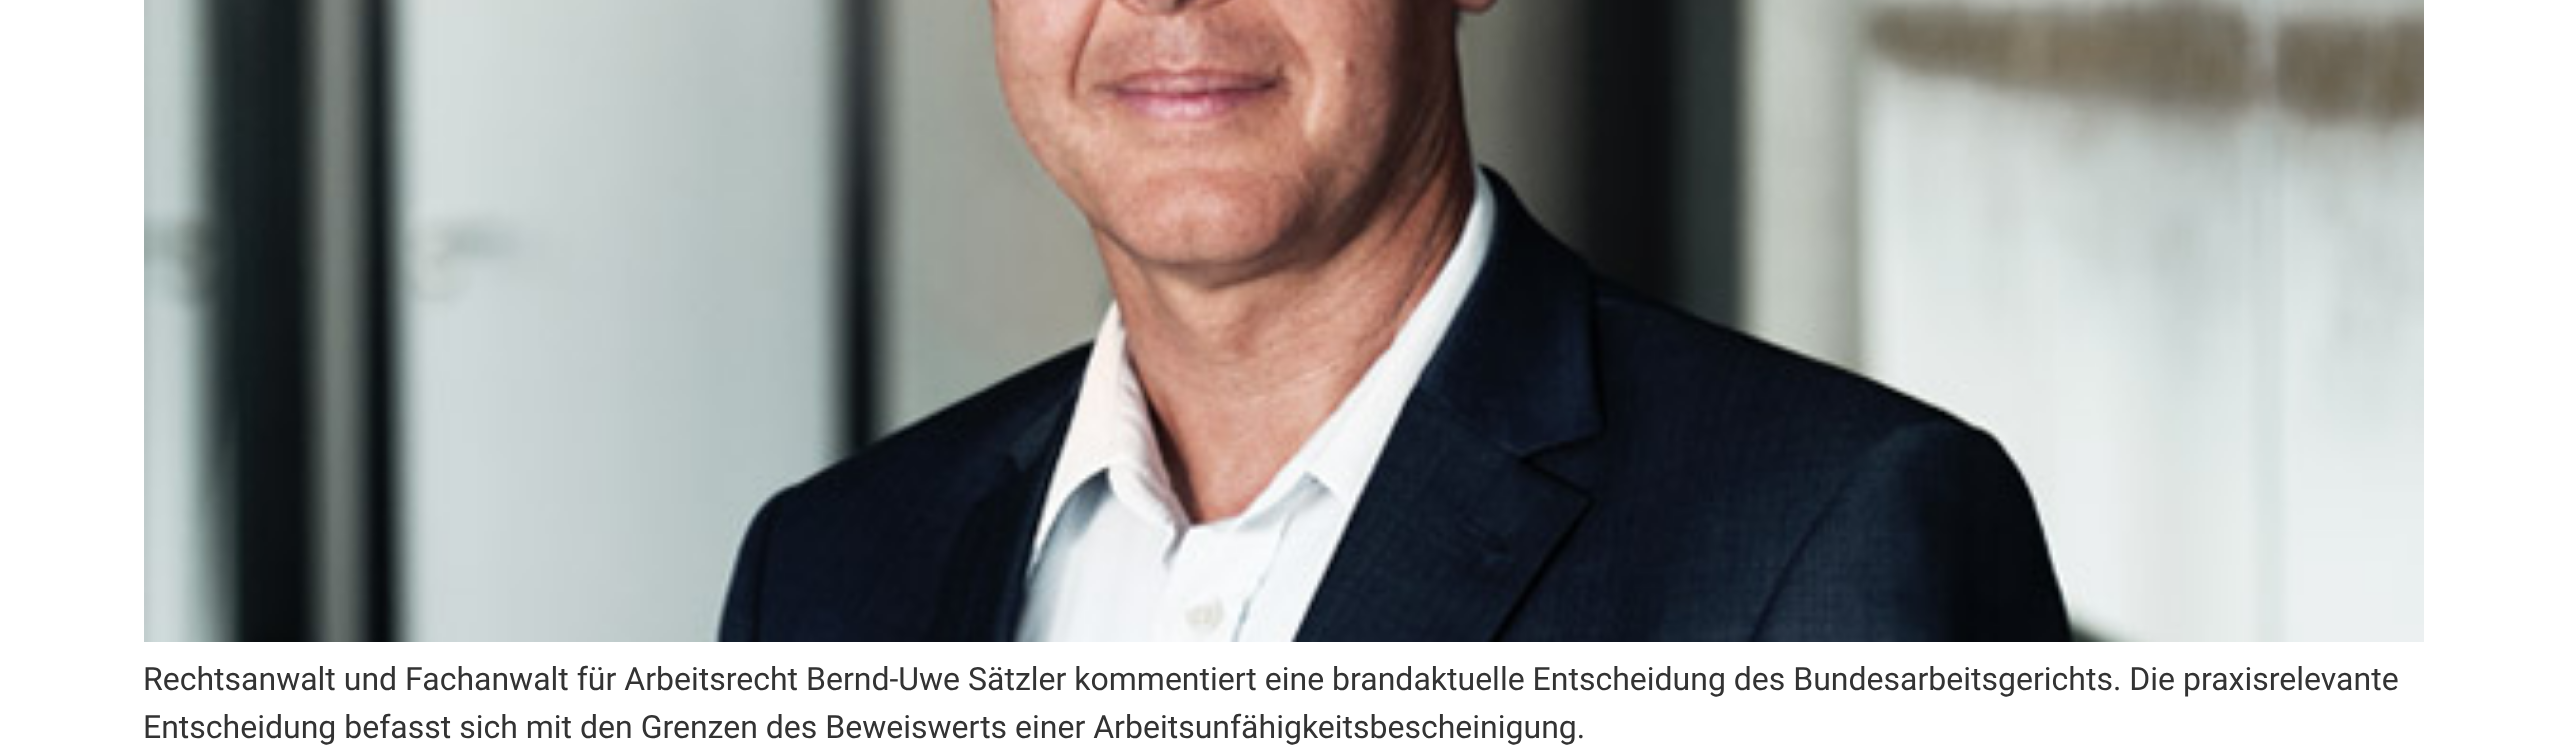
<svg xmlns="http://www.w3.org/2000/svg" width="2565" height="751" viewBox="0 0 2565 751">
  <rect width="100%" height="100%" fill="rgb(255,255,255)"/>
  <image x="144" y="0" width="2280" height="642" href="pic1.png"/>
  <g font-family="Roboto" font-size="32" fill="rgb(51,51,51)">
    <text>
      <tspan x="143" y="690">Rechtsanwalt und Fachanwalt für Arbeitsrecht Bernd-Uwe Sätzler kommentiert eine brandaktuelle Entscheidung des Bundesarbeitsgerichts. Die praxisrelevante</tspan>
      <tspan x="143" y="738">Entscheidung befasst sich mit den Grenzen des Beweiswerts einer Arbeitsunfähigkeitsbescheinigung.</tspan>
    </text>
  </g>
</svg>
